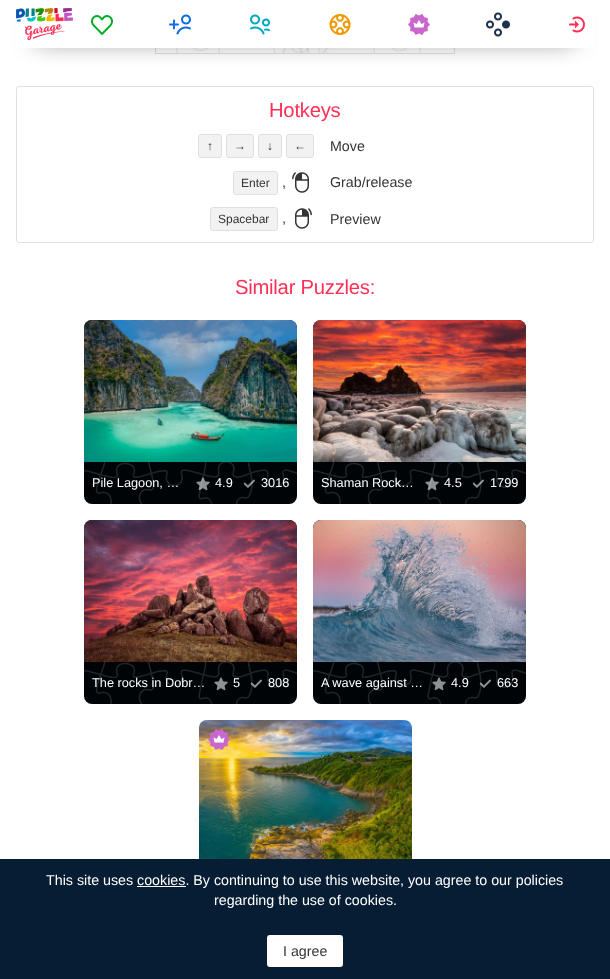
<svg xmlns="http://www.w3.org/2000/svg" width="610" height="979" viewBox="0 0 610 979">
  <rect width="100%" height="100%" fill="rgb(255,255,255)"/>
  <image x="175" y="48" width="246" height="5" href="pic9.png"/>
  <rect x="155.5" y="30.5" width="299" height="23" fill="none" stroke="rgb(224,224,224)"/>
  <rect x="36" y="30" width="538" height="8" fill="rgb(1,4,7)" filter="blur(12.5px)"/>
  <rect x="16" y="2" width="578" height="46" fill="rgb(255,255,255)"/>
  <image x="16" y="8" width="57" height="32" href="pic1.png"/>
  <image x="90" y="15" width="23" height="20" href="pic2.png"/>
  <image x="169" y="14" width="22" height="21" href="pic3.png"/>
  <image x="250" y="14" width="20" height="21" href="pic4.png"/>
  <image x="329" y="14" width="22" height="21" href="pic5.png"/>
  <image x="408" y="14" width="22" height="21" href="pic6.png"/>
  <image x="486" y="12" width="24" height="25" href="pic7.png"/>
  <image x="569" y="16" width="16" height="17" href="pic8.png"/>
  <rect x="16.5" y="86.5" width="577" height="156" rx="2.5" fill="none" stroke="rgb(224,224,224)"/>
  <text x="269" y="117" font-family="Liberation Sans" font-size="20.25" letter-spacing="-0.25" fill="rgb(255,47,86)">Hotkeys</text>
  <rect x="198.5" y="134.5" width="23" height="23" rx="2.5" fill="rgb(242,242,242)" stroke="rgb(224,224,224)"/>
  <text x="207" y="150" font-family="Liberation Sans" font-size="12" fill="rgb(52,52,52)">↑</text>
  <rect x="226.5" y="134.5" width="27" height="23" rx="2.5" fill="rgb(242,242,242)" stroke="rgb(224,224,224)"/>
  <text x="234" y="150" font-family="Liberation Sans" font-size="12" fill="rgb(52,52,52)">→</text>
  <rect x="258.5" y="134.5" width="23" height="23" rx="2.5" fill="rgb(242,242,242)" stroke="rgb(224,224,224)"/>
  <text x="267" y="150" font-family="Liberation Sans" font-size="12" fill="rgb(52,52,52)">↓</text>
  <rect x="286.5" y="134.5" width="27" height="23" rx="2.5" fill="rgb(242,242,242)" stroke="rgb(224,224,224)"/>
  <text x="294" y="150" font-family="Liberation Sans" font-size="12" fill="rgb(52,52,52)">←</text>
  <text x="330" y="151" font-family="Liberation Sans" font-size="14.25" fill="rgb(52,52,52)">Move</text>
  <rect x="233.5" y="171.5" width="44" height="23" rx="2.5" fill="rgb(242,242,242)" stroke="rgb(224,224,224)"/>
  <text x="241" y="187" font-family="Liberation Sans" font-size="12" fill="rgb(52,52,52)">Enter</text>
  <text x="282" y="187" font-family="Liberation Sans" font-size="14.25" fill="rgb(52,52,52)">,</text>
  <image x="292" y="172" width="17" height="21" href="pic10.png"/>
  <text x="330" y="187" font-family="Liberation Sans" font-size="14.25" fill="rgb(52,52,52)">Grab/release</text>
  <rect x="210.5" y="207.5" width="67" height="23" rx="2.5" fill="rgb(242,242,242)" stroke="rgb(224,224,224)"/>
  <text x="218" y="223" font-family="Liberation Sans" font-size="12" fill="rgb(52,52,52)">Spacebar</text>
  <text x="282" y="223" font-family="Liberation Sans" font-size="14.25" fill="rgb(52,52,52)">,</text>
  <image x="295" y="208" width="17" height="21" href="pic11.png"/>
  <text x="330" y="224" font-family="Liberation Sans" font-size="14.25" fill="rgb(52,52,52)">Preview</text>
  <text x="235" y="294" font-family="Liberation Sans" font-size="20.25" letter-spacing="-0.25" fill="rgb(255,47,86)">Similar Puzzles:</text>
  <rect x="84" y="320" width="213" height="184" rx="8" fill="rgb(1,4,7)"/>
  <image x="84" y="321" width="213" height="183" href="pic12.png"/>
  <image x="84" y="320" width="213" height="142" href="pic13.png"/>
  <text x="92" y="487" font-family="Liberation Sans" font-size="12.75" fill="rgb(255,255,255)">Pile Lagoon, …</text>
  <image x="196" y="477" width="14" height="14" href="pic14.png"/>
  <text x="215" y="487" font-family="Liberation Sans" font-size="12.75" fill="rgb(255,255,255)">4.9</text>
  <image x="243" y="479" width="12" height="9" href="pic15.png"/>
  <text x="261" y="487" font-family="Liberation Sans" font-size="12.75" fill="rgb(255,255,255)">3016</text>
  <rect x="313" y="320" width="213" height="184" rx="8" fill="rgb(1,4,7)"/>
  <image x="313" y="321" width="213" height="183" href="pic12.png"/>
  <image x="313" y="320" width="213" height="142" href="pic16.png"/>
  <text x="321" y="487" font-family="Liberation Sans" font-size="12.75" fill="rgb(255,255,255)">Shaman Rock…</text>
  <image x="425" y="477" width="14" height="14" href="pic14.png"/>
  <text x="444" y="487" font-family="Liberation Sans" font-size="12.75" fill="rgb(255,255,255)">4.5</text>
  <image x="472" y="479" width="12" height="9" href="pic15.png"/>
  <text x="490" y="487" font-family="Liberation Sans" font-size="12.75" fill="rgb(255,255,255)">1799</text>
  <rect x="84" y="520" width="213" height="184" rx="8" fill="rgb(1,4,7)"/>
  <image x="84" y="521" width="213" height="183" href="pic12.png"/>
  <image x="84" y="520" width="213" height="142" href="pic17.png"/>
  <text x="92" y="687" font-family="Liberation Sans" font-size="12.75" fill="rgb(255,255,255)">The rocks in Dobr…</text>
  <image x="214" y="677" width="14" height="14" href="pic18.png"/>
  <text x="233" y="687" font-family="Liberation Sans" font-size="12.75" fill="rgb(255,255,255)">5</text>
  <image x="250" y="679" width="12" height="9" href="pic19.png"/>
  <text x="268" y="687" font-family="Liberation Sans" font-size="12.75" fill="rgb(255,255,255)">808</text>
  <rect x="313" y="520" width="213" height="184" rx="8" fill="rgb(1,4,7)"/>
  <image x="313" y="521" width="213" height="183" href="pic12.png"/>
  <image x="313" y="520" width="213" height="142" href="pic20.png"/>
  <text x="321" y="687" font-family="Liberation Sans" font-size="12.75" fill="rgb(255,255,255)">A wave against …</text>
  <image x="432" y="677" width="14" height="14" href="pic21.png"/>
  <text x="451" y="687" font-family="Liberation Sans" font-size="12.75" fill="rgb(255,255,255)">4.9</text>
  <image x="479" y="679" width="12" height="9" href="pic19.png"/>
  <text x="497" y="687" font-family="Liberation Sans" font-size="12.75" fill="rgb(255,255,255)">663</text>
  <image x="200" y="721" width="210" height="3" href="pic22.png"/>
  <image x="199" y="720" width="213" height="139" href="pic23.png"/>
  <circle cx="218.5" cy="739.5" r="7.5" fill="rgb(255,255,255)"/>
  <image x="208" y="729" width="22" height="21" href="pic24.png"/>
  <rect x="0" y="859" width="610" height="120" fill="rgb(7,29,51)"/>
  <text x="46" y="885" font-family="Liberation Sans" font-size="14.25" fill="rgb(255,255,255)">This site uses cookies. By continuing to use this website, you agree to our policies</text>
  <rect x="137" y="886" width="49" height="1" fill="rgb(255,255,255)"/>
  <text x="214" y="905" font-family="Liberation Sans" font-size="14.25" fill="rgb(255,255,255)">regarding the use of cookies.</text>
  <rect x="267" y="935" width="76" height="32" rx="3" fill="rgb(255,255,255)"/>
  <text x="283" y="956" font-family="Liberation Sans" font-size="14.25" fill="rgb(52,52,52)">I agree</text>
</svg>
